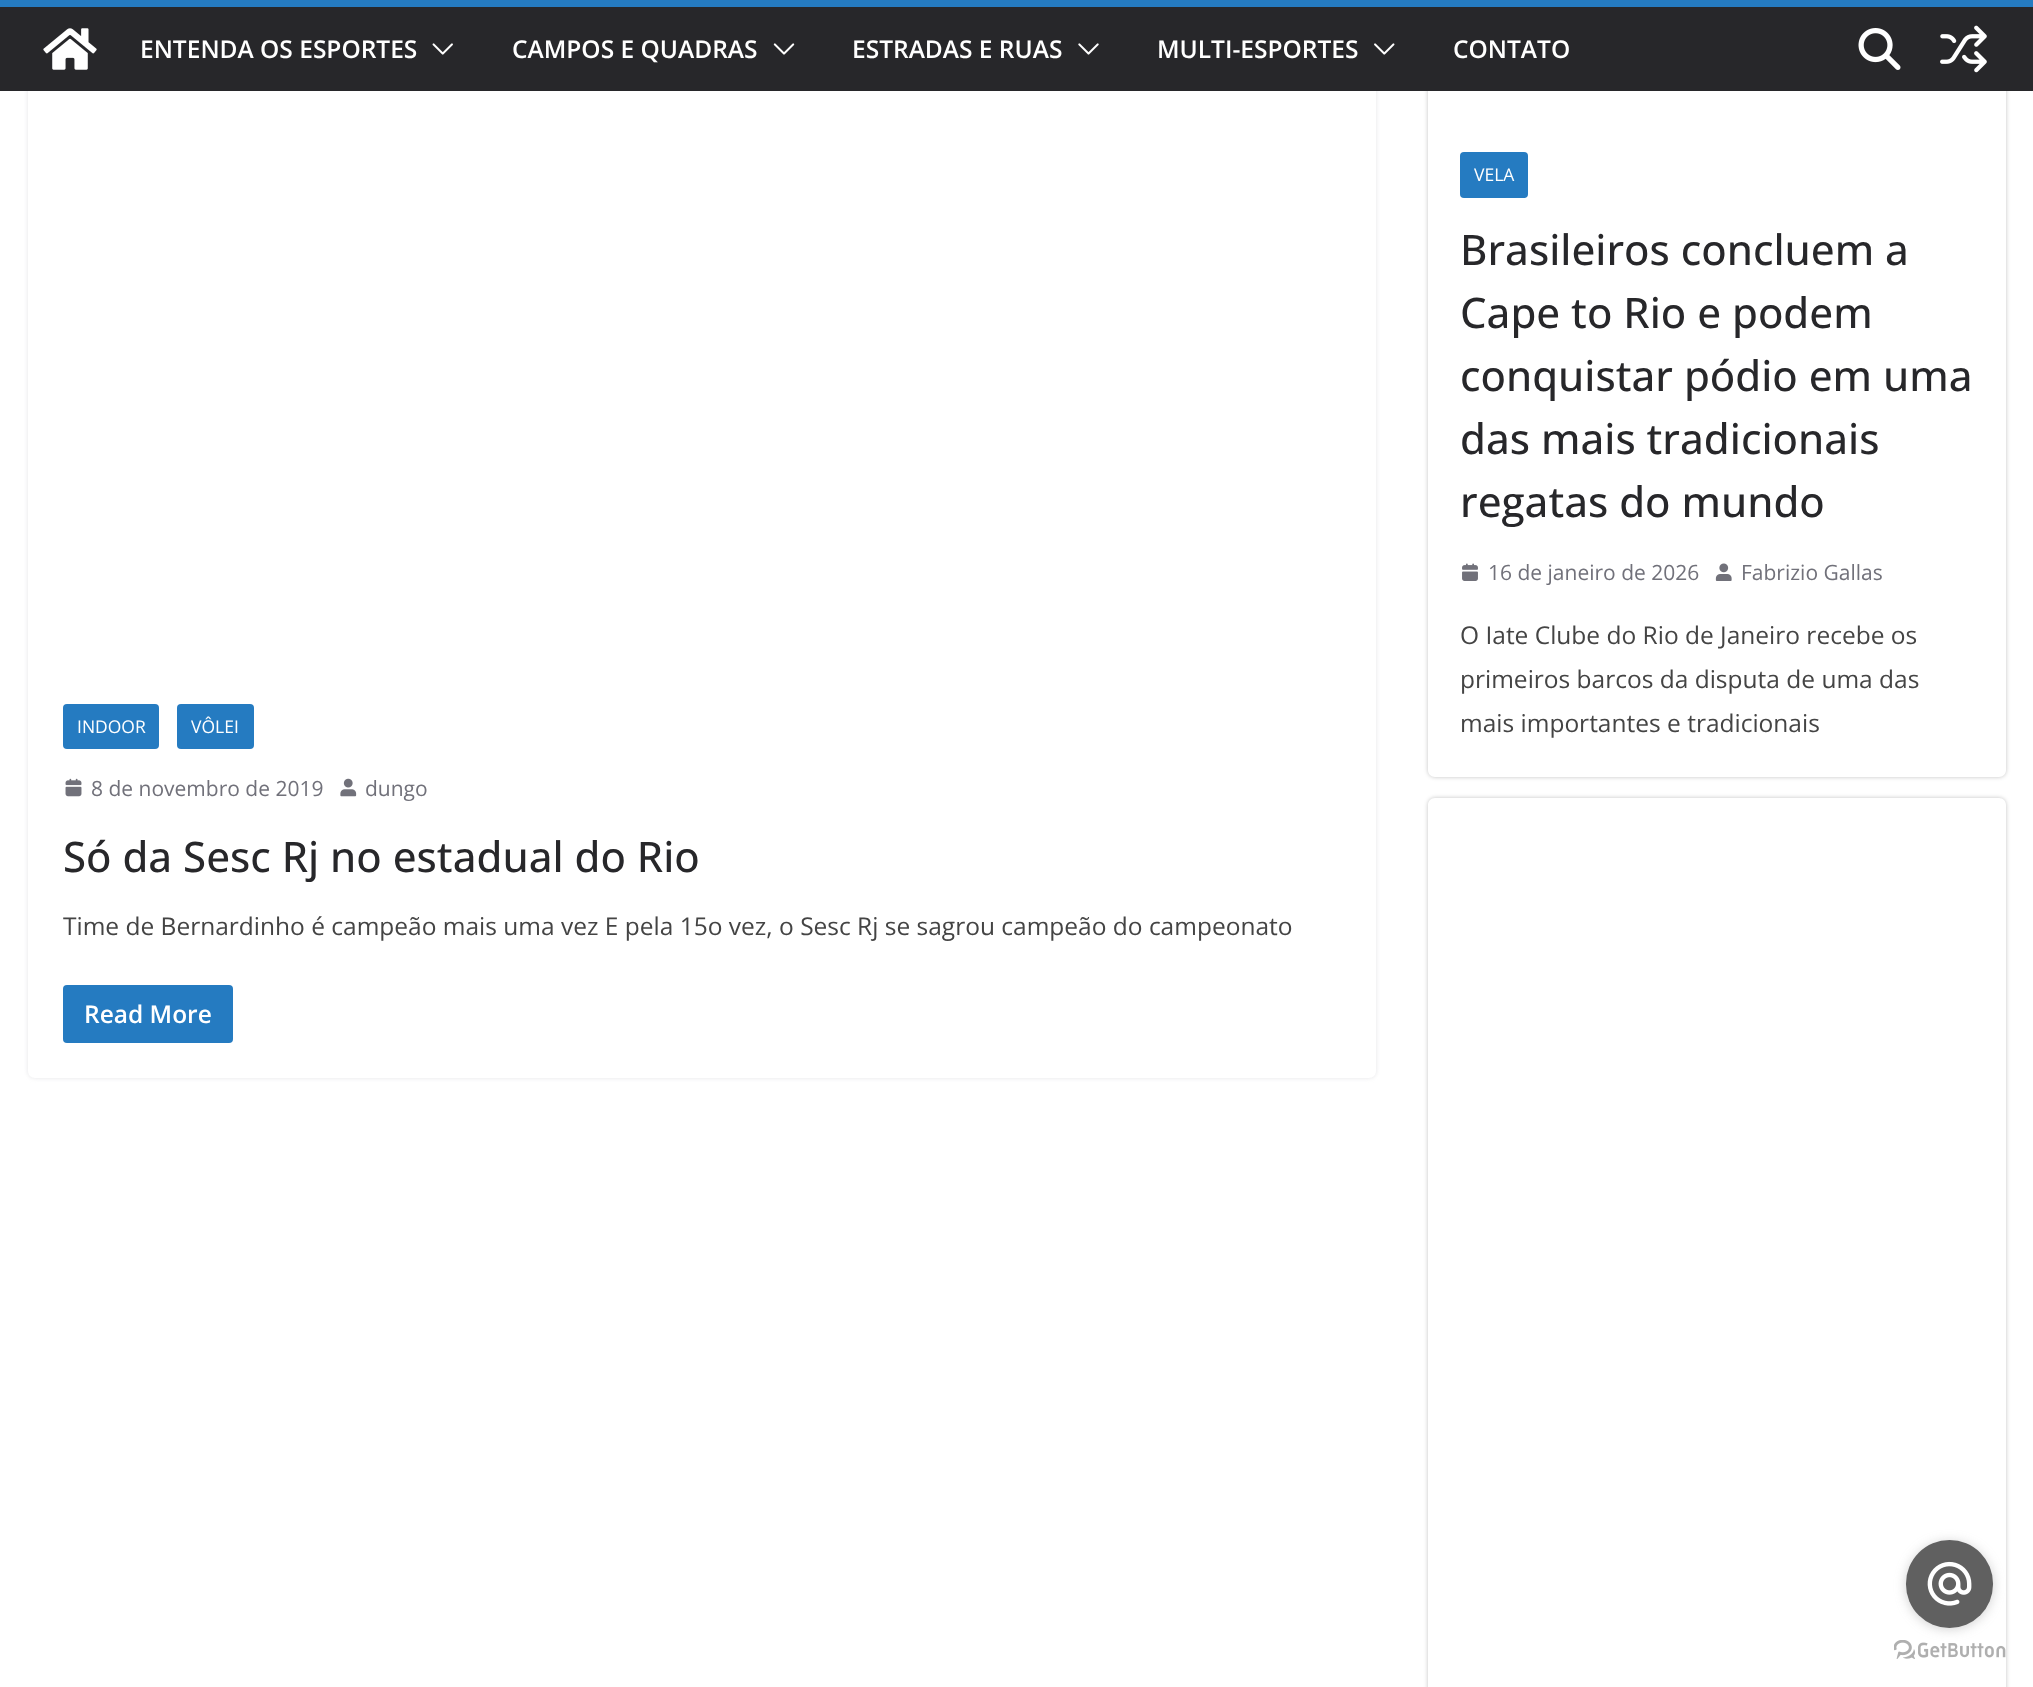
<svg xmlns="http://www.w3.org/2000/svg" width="2033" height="1687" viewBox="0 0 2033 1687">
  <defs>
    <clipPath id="clip1"><path d="M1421 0H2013V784H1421ZM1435-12H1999C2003-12 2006-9 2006-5V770C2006 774 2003 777 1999 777H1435C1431 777 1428 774 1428 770V-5C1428-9 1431-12 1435-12Z" clip-rule="evenodd"/></clipPath>
    <clipPath id="clip2"><path d="M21 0H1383V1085H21ZM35-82H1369C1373-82 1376-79 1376-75V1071C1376 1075 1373 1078 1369 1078H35C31 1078 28 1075 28 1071V-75C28-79 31-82 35-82Z" clip-rule="evenodd"/></clipPath>
    <clipPath id="clip3"><path d="M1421 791H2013V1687H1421ZM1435 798H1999C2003 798 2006 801 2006 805V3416C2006 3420 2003 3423 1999 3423H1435C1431 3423 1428 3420 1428 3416V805C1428 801 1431 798 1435 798Z" clip-rule="evenodd"/></clipPath>
  </defs>
  <rect width="100%" height="100%" fill="rgb(255,255,255)"/>
  <g clip-path="url(#clip1)">
    <rect x="1428" y="-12" width="578" height="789" rx="7" fill="rgba(0,0,0,0.24)" filter="blur(2px)"/>
  </g>
  <g clip-path="url(#clip2)">
    <rect x="28" y="-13" width="1348" height="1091" rx="7" fill="rgb(228,228,231)" filter="blur(2px)"/>
  </g>
  <rect x="0" y="7" width="2033" height="84" fill="rgb(39,39,42)"/>
  <rect x="0" y="0" width="2033" height="7" fill="rgb(37,123,193)"/>
  <image x="43" y="28" width="54" height="42" href="pic1.png"/>
  <text x="140" y="58" font-family="Open Sans" font-size="24.5" font-weight="600" fill="rgb(255,255,255)">ENTENDA OS ESPORTES</text>
  <image x="432" y="43" width="21" height="12" href="pic2.png"/>
  <text x="512" y="58" font-family="Open Sans" font-size="24.5" font-weight="600" fill="rgb(255,255,255)">CAMPOS E QUADRAS</text>
  <image x="773" y="43" width="22" height="12" href="pic3.png"/>
  <text x="852" y="58" font-family="Open Sans" font-size="24.5" font-weight="600" fill="rgb(255,255,255)">ESTRADAS E RUAS</text>
  <image x="1078" y="43" width="21" height="12" href="pic4.png"/>
  <text x="1157" y="58" font-family="Open Sans" font-size="24.5" font-weight="600" fill="rgb(255,255,255)">MULTI-ESPORTES</text>
  <image x="1374" y="43" width="21" height="12" href="pic5.png"/>
  <text x="1453" y="58" font-family="Open Sans" font-size="24.5" font-weight="600" fill="rgb(255,255,255)">CONTATO</text>
  <image x="1858" y="28" width="43" height="42" href="pic6.png"/>
  <image x="1940" y="25" width="47" height="48" href="pic7.png"/>
  <rect x="1460" y="152" width="68" height="46" rx="4" fill="rgb(37,123,193)"/>
  <text x="1474" y="181" font-family="Open Sans" font-size="17.5" fill="rgb(255,255,255)">VELA</text>
  <g font-family="Open Sans" font-size="42" font-weight="500" fill="rgb(39,39,42)">
    <text>
      <tspan x="1460" y="265">Brasileiros concluem a</tspan>
      <tspan x="1460" y="328">Cape to Rio e podem</tspan>
      <tspan x="1460" y="391">conquistar pódio em uma</tspan>
      <tspan x="1460" y="454">das mais tradicionais</tspan>
      <tspan x="1460" y="517">regatas do mundo</tspan>
    </text>
  </g>
  <image x="1462" y="563" width="16" height="18" href="pic8.png"/>
  <text x="1488" y="580" font-family="Open Sans" font-size="21" fill="rgb(113,113,122)">16 de janeiro de 2026</text>
  <image x="1715" y="563" width="17" height="18" href="pic9.png"/>
  <text x="1741" y="580" font-family="Open Sans" font-size="21" fill="rgb(113,113,122)">Fabrizio Gallas</text>
  <g font-family="Open Sans" font-size="24.5" fill="rgb(68,68,68)">
    <text>
      <tspan x="1460" y="644">O Iate Clube do Rio de Janeiro recebe os</tspan>
      <tspan x="1460" y="688">primeiros barcos da disputa de uma das</tspan>
      <tspan x="1460" y="732">mais importantes e tradicionais</tspan>
    </text>
  </g>
  <g clip-path="url(#clip3)">
    <rect x="1428" y="798" width="578" height="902" rx="7" fill="rgba(0,0,0,0.24)" filter="blur(2px)"/>
  </g>
  <rect x="63" y="704" width="96" height="45" rx="4" fill="rgb(37,123,193)"/>
  <text x="77" y="733" font-family="Open Sans" font-size="17.5" fill="rgb(255,255,255)">INDOOR</text>
  <rect x="177" y="704" width="77" height="45" rx="4" fill="rgb(37,123,193)"/>
  <text x="191" y="733" font-family="Open Sans" font-size="17.5" fill="rgb(255,255,255)">VÔLEI</text>
  <image x="65" y="778" width="17" height="19" href="pic10.png"/>
  <text x="91" y="796" font-family="Open Sans" font-size="21" fill="rgb(113,113,122)">8 de novembro de 2019</text>
  <image x="340" y="778" width="17" height="19" href="pic11.png"/>
  <text x="365" y="796" font-family="Open Sans" font-size="21" fill="rgb(113,113,122)">dungo</text>
  <text x="63" y="872" font-family="Open Sans" font-size="42" font-weight="500" fill="rgb(39,39,42)">Só da Sesc Rj no estadual do Rio</text>
  <text x="63" y="935" font-family="Open Sans" font-size="24.5" fill="rgb(68,68,68)">Time de Bernardinho é campeão mais uma vez E pela 15o vez, o Sesc Rj se sagrou campeão do campeonato</text>
  <rect x="63" y="985" width="170" height="58" rx="4" fill="rgb(37,123,193)"/>
  <text x="84" y="1023" font-family="Open Sans" font-size="24.5" font-weight="600" fill="rgb(255,255,255)">Read More</text>
  <image x="1894" y="1640" width="112" height="19" href="pic13.png"/>
  <rect x="1906" y="1542" width="87" height="87" rx="43.5" fill="rgba(136,136,136,0.4)" filter="blur(6px)"/>
  <rect x="1906" y="1540" width="87" height="88" rx="43.5" fill="rgb(96,96,96)"/>
  <image x="1927" y="1561" width="45" height="45" href="pic12.png"/>
</svg>
